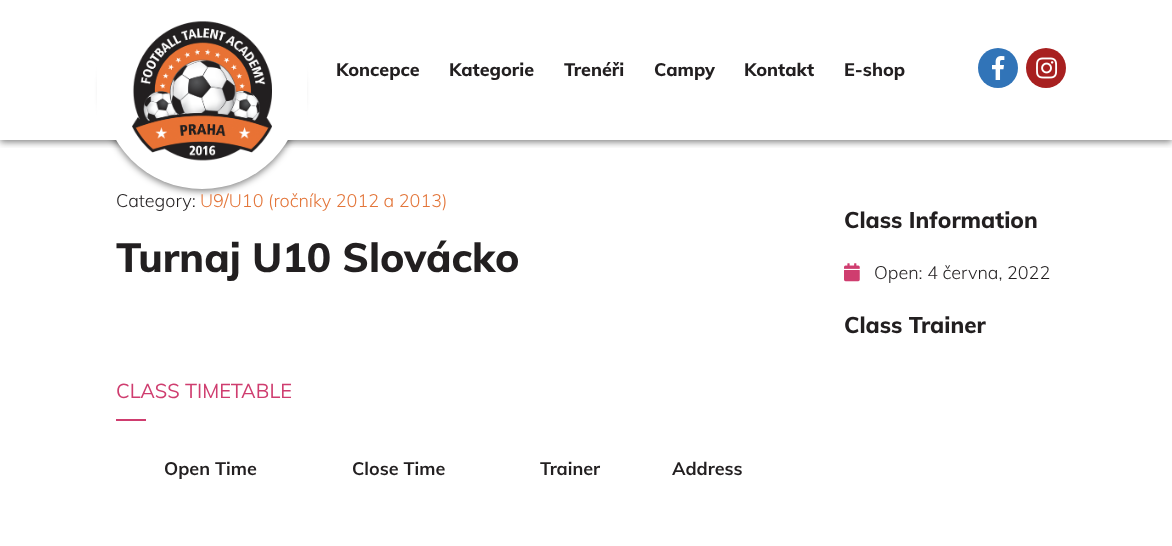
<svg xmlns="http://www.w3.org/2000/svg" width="1172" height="546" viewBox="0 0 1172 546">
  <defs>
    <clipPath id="clip1"><rect x="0" y="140" width="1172" height="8"/></clipPath>
  </defs>
  <rect width="100%" height="100%" fill="rgb(255,255,255)"/>
  <g clip-path="url(#clip1)">
    <rect x="0" y="2" width="1172" height="140" fill="rgba(0,0,0,0.5)" filter="blur(3.5px)"/>
  </g>
  <rect x="102" y="-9" width="200" height="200" rx="100" fill="rgba(0,0,0,0.5)" filter="blur(3.5px)"/>
  <circle cx="202" cy="89" r="100" fill="rgb(255,255,255)"/>
  <rect x="97" y="0" width="210" height="140" fill="rgb(255,255,255)"/>
  <image x="132" y="21" width="140" height="140" href="pic1.png"/>
  <g font-family="Muli" font-size="18" font-weight="800" fill="rgb(34,31,32)">
    <text x="336" y="76">Koncepce</text>
    <text x="449" y="76">Kategorie</text>
    <text x="564" y="76">Trenéři</text>
    <text x="654" y="76">Campy</text>
    <text x="744" y="76">Kontakt</text>
    <text x="844" y="76">E-shop</text>
  </g>
  <circle cx="998" cy="68" r="20" fill="rgb(49,116,184)"/>
  <image x="992" y="56" width="13" height="24" href="pic2.png"/>
  <circle cx="1046" cy="68" r="20" fill="rgb(168,32,32)"/>
  <image x="1036" y="57" width="22" height="22" href="pic3.png"/>
  <text x="116" y="207" font-family="Muli" font-size="18" font-weight="300" fill="rgb(34,31,32)">Category:</text>
  <text x="200" y="207" font-family="Muli" font-size="18" font-weight="300" fill="rgb(227,117,57)">U9/U10 (ročníky 2012 a 2013)</text>
  <text x="116" y="272" font-family="Muli" font-size="40.5" font-weight="800" fill="rgb(34,31,32)">Turnaj U10 Slovácko</text>
  <text x="116" y="398" font-family="Muli" font-size="20" fill="rgb(207,61,111)">CLASS TIMETABLE</text>
  <rect x="116" y="419" width="30" height="2" fill="rgb(207,61,111)"/>
  <g font-family="Muli" font-size="18" font-weight="bold" fill="rgb(34,31,32)">
    <text x="164" y="475">Open Time</text>
    <text x="352" y="475">Close Time</text>
    <text x="540" y="475">Trainer</text>
    <text x="672" y="475">Address</text>
  </g>
  <text x="844" y="228" font-family="Muli" font-size="22.5" font-weight="800" fill="rgb(34,31,32)">Class Information</text>
  <image x="844" y="263" width="16" height="19" href="pic4.png"/>
  <text x="874" y="279" font-family="Muli" font-size="18" font-weight="300" fill="rgb(34,31,32)">Open: 4 června, 2022</text>
  <text x="844" y="333" font-family="Muli" font-size="22.5" font-weight="800" fill="rgb(34,31,32)">Class Trainer</text>
</svg>
